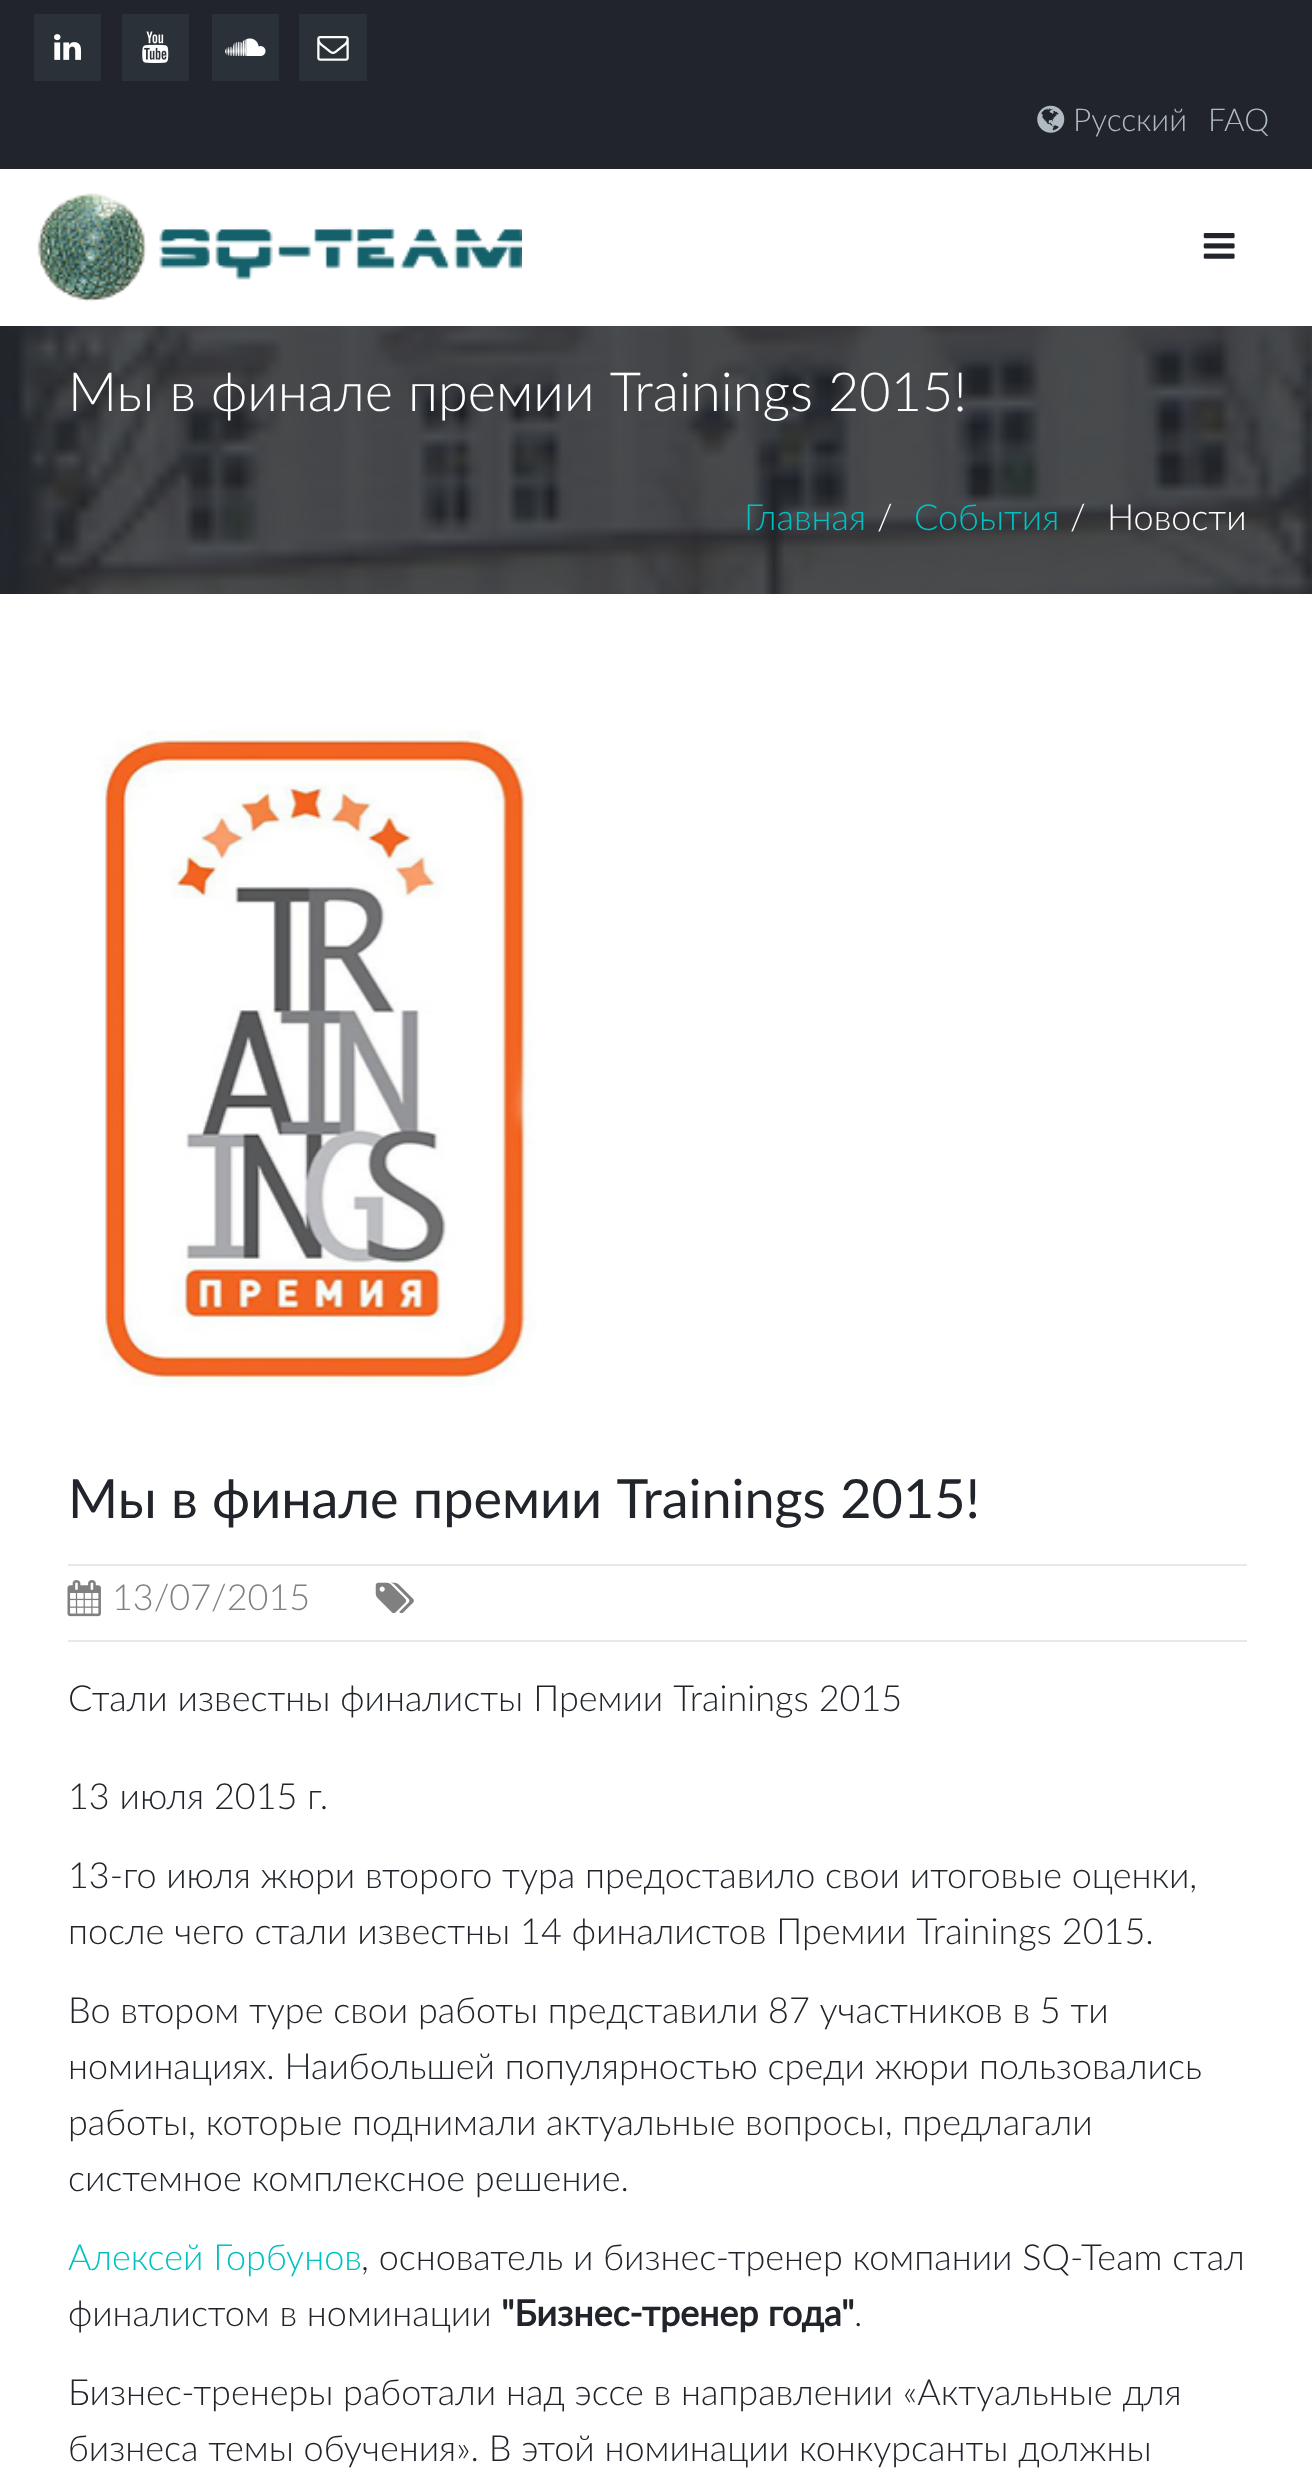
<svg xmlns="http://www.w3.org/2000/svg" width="1312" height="2472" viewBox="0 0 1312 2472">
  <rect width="100%" height="100%" fill="rgb(33,37,43)"/>
  <rect x="34" y="14" width="67" height="67" fill="rgb(43,49,57)"/>
  <image x="54" y="34" width="27" height="26" href="pic1.png"/>
  <rect x="122" y="14" width="67" height="67" fill="rgb(43,49,57)"/>
  <image x="142" y="31" width="27" height="32" href="pic2.png"/>
  <rect x="212" y="14" width="67" height="67" fill="rgb(43,49,57)"/>
  <image x="225" y="38" width="41" height="18" href="pic3.png"/>
  <rect x="299" y="14" width="68" height="67" fill="rgb(43,49,57)"/>
  <image x="317" y="36" width="32" height="25" href="pic4.png"/>
  <image x="1037" y="105" width="28" height="28" href="pic5.png"/>
  <g font-family="Lato" font-size="31.5" font-weight="300" fill="rgb(176,186,194)">
    <text x="1073" y="131">Русский</text>
    <text x="1208" y="131">FAQ</text>
  </g>
  <rect x="0" y="169" width="1312" height="157" fill="rgb(255,255,255)"/>
  <image x="37" y="193" width="485" height="109" href="pic6.png"/>
  <image x="1203" y="233" width="32" height="26" href="pic7.png"/>
  <image x="0" y="326" width="1312" height="268" href="pic8.png"/>
  <text x="68" y="411" word-spacing="0.5" font-family="Lato" font-size="54" font-weight="300" fill="rgb(255,255,255)">Мы в финале премии Trainings 2015!</text>
  <text x="744" y="530" font-family="Lato" font-size="36" font-weight="300" fill="rgb(1,193,193)">Главная</text>
  <text x="877" y="530" font-family="Lato" font-size="36" font-weight="300" fill="rgb(255,255,255)">/</text>
  <text x="914" y="530" font-family="Lato" font-size="36" font-weight="300" fill="rgb(1,193,193)">События</text>
  <g font-family="Lato" font-size="36" font-weight="300" fill="rgb(255,255,255)">
    <text x="1070" y="530">/</text>
    <text x="1107" y="530">Новости</text>
  </g>
  <rect x="0" y="594" width="1312" height="1878" fill="rgb(255,255,255)"/>
  <image x="97" y="730" width="440" height="656" href="pic9.png"/>
  <text x="68" y="1518" word-spacing="0.5" font-family="Lato" font-size="54" fill="rgb(33,37,43)">Мы в финале премии Trainings 2015!</text>
  <rect x="68" y="1564" width="1179" height="2" fill="rgb(231,233,233)"/>
  <rect x="68" y="1640" width="1179" height="2" fill="rgb(231,233,233)"/>
  <image x="67" y="1580" width="34" height="37" href="pic10.png"/>
  <text x="112" y="1610" font-family="Lato" font-size="36" font-weight="300" fill="rgb(128,128,128)">13/07/2015</text>
  <image x="375" y="1582" width="39" height="32" href="pic11.png"/>
  <g font-family="Lato" font-size="36" font-weight="300" fill="rgb(33,37,43)">
    <text x="68" y="1711" word-spacing="0.25">Стали известны финалисты Премии Trainings 2015</text>
    <text x="68" y="1809">13 июля 2015 г.</text>
    <text>
      <tspan x="68" y="1888">13-го июля жюри второго тура предоставило свои итоговые оценки,</tspan>
      <tspan x="68" y="1944" word-spacing="0.25">после чего стали известны 14 финалистов Премии Trainings 2015.</tspan>
    </text>
    <text>
      <tspan x="68" y="2023">Во втором туре свои работы представили 87 участников в 5 ти</tspan>
      <tspan x="68" y="2079">номинациях. Наибольшей популярностью среди жюри пользовались</tspan>
      <tspan x="68" y="2135">работы, которые поднимали актуальные вопросы, предлагали</tspan>
      <tspan x="68" y="2191">системное комплексное решение.</tspan>
    </text>
  </g>
  <text x="68" y="2270" font-family="Lato" font-size="36" font-weight="300" fill="rgb(1,193,193)">Алексей Горбунов</text>
  <g font-family="Lato" font-size="36" font-weight="300" fill="rgb(33,37,43)">
    <text x="361" y="2270">, основатель и бизнес-тренер компании SQ-Team стал</text>
    <text x="68" y="2326">финалистом в номинации</text>
  </g>
  <text x="501" y="2326" font-family="Lato" font-size="36" font-weight="bold" fill="rgb(33,37,43)">"Бизнес-тренер года"</text>
  <g font-family="Lato" font-size="36" font-weight="300" fill="rgb(33,37,43)">
    <text x="854" y="2326">.</text>
    <text>
      <tspan x="68" y="2405">Бизнес-тренеры работали над эссе в направлении «Актуальные для</tspan>
      <tspan x="68" y="2461">бизнеса темы обучения». В этой номинации конкурсанты должны</tspan>
    </text>
  </g>
</svg>
